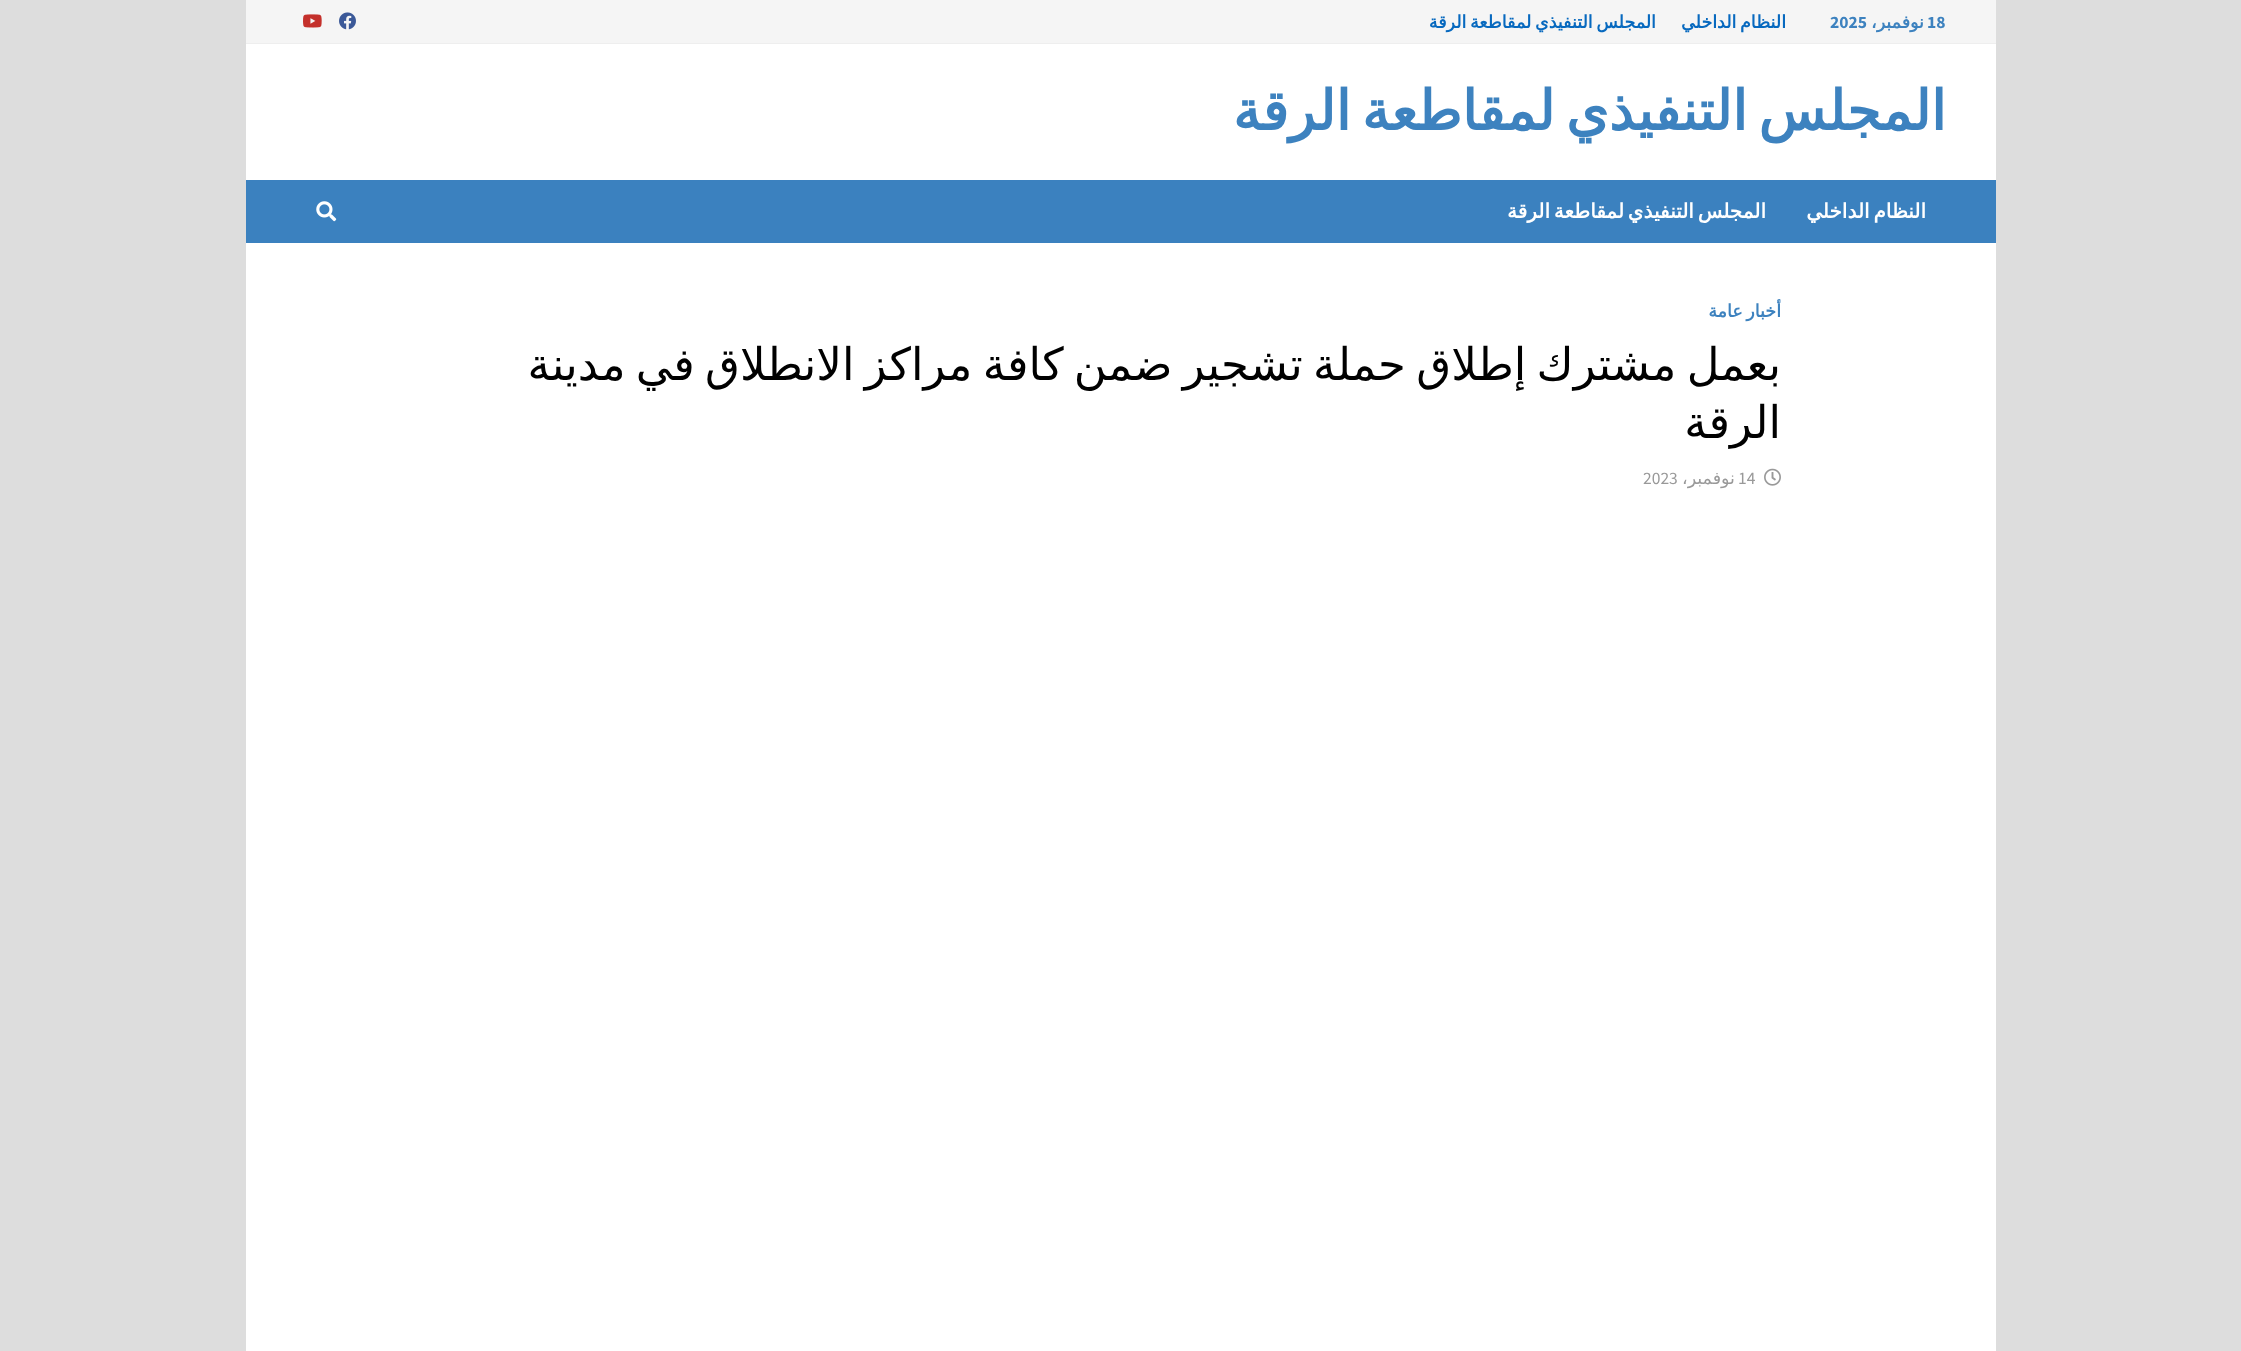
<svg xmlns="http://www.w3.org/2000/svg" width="2241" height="1351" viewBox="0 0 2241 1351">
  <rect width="100%" height="100%" fill="rgb(221,221,221)"/>
  <rect x="246" y="44" width="1750" height="1307" fill="rgb(255,255,255)"/>
  <rect x="246" y="0" width="1750" height="43" fill="rgb(245,245,245)"/>
  <rect x="246" y="43" width="1750" height="1" fill="rgb(238,238,238)"/>
  <text x="1927" y="28" font-family="Source Sans Pro" font-size="17.5" font-weight="bold" fill="rgb(61,130,191)">18</text>
  <text x="1924" y="28" font-family="DejaVu Sans" font-size="17.5" font-weight="bold" direction="rtl" fill="rgb(61,130,191)">نوفمبر،</text>
  <text x="1830" y="28" font-family="Source Sans Pro" font-size="17.5" font-weight="bold" fill="rgb(61,130,191)">2025</text>
  <g font-family="DejaVu Sans" font-size="17.5" font-weight="bold" direction="rtl" fill="rgb(7,105,191)">
    <text x="1786" y="28" word-spacing="-2">النظام الداخلي</text>
    <text x="1656" y="28" word-spacing="-2">المجلس التنفيذي لمقاطعة الرقة</text>
  </g>
  <image x="339" y="12" width="17" height="18" href="pic1.png"/>
  <image x="303" y="14" width="19" height="14" href="pic2.png"/>
  <text x="1946" y="130" word-spacing="-6.5" font-family="DejaVu Sans" font-size="55" font-weight="bold" direction="rtl" fill="rgb(61,130,191)">المجلس التنفيذي لمقاطعة الرقة</text>
  <rect x="246" y="180" width="1750" height="63" fill="rgb(59,129,191)"/>
  <g font-family="DejaVu Sans" font-size="20" font-weight="bold" direction="rtl" fill="rgb(255,255,255)">
    <text x="1926" y="218" word-spacing="-2.5">النظام الداخلي</text>
    <text x="1766" y="218" word-spacing="-2.5">المجلس التنفيذي لمقاطعة الرقة</text>
  </g>
  <image x="316" y="201" width="21" height="21" href="pic3.png"/>
  <text x="1781" y="317" word-spacing="-2" font-family="DejaVu Sans" font-size="17.5" font-weight="bold" direction="rtl" fill="rgb(61,130,191)">أخبار عامة</text>
  <g font-family="DejaVu Sans" font-size="45" direction="rtl" fill="rgb(0,0,0)">
    <text>
      <tspan x="1781" y="380" word-spacing="-4">بعمل مشترك إطلاق حملة تشجير ضمن كافة مراكز الانطلاق في مدينة</tspan>
      <tspan x="1781" y="438">الرقة</tspan>
    </text>
  </g>
  <image x="1764" y="468" width="17" height="18" href="pic4.png"/>
  <text x="1738" y="484" font-family="Source Sans Pro" font-size="17.5" fill="rgb(153,153,153)">14</text>
  <text x="1735" y="484" font-family="DejaVu Sans" font-size="17.5" direction="rtl" fill="rgb(153,153,153)">نوفمبر،</text>
  <text x="1643" y="484" font-family="Source Sans Pro" font-size="17.5" fill="rgb(153,153,153)">2023</text>
</svg>
